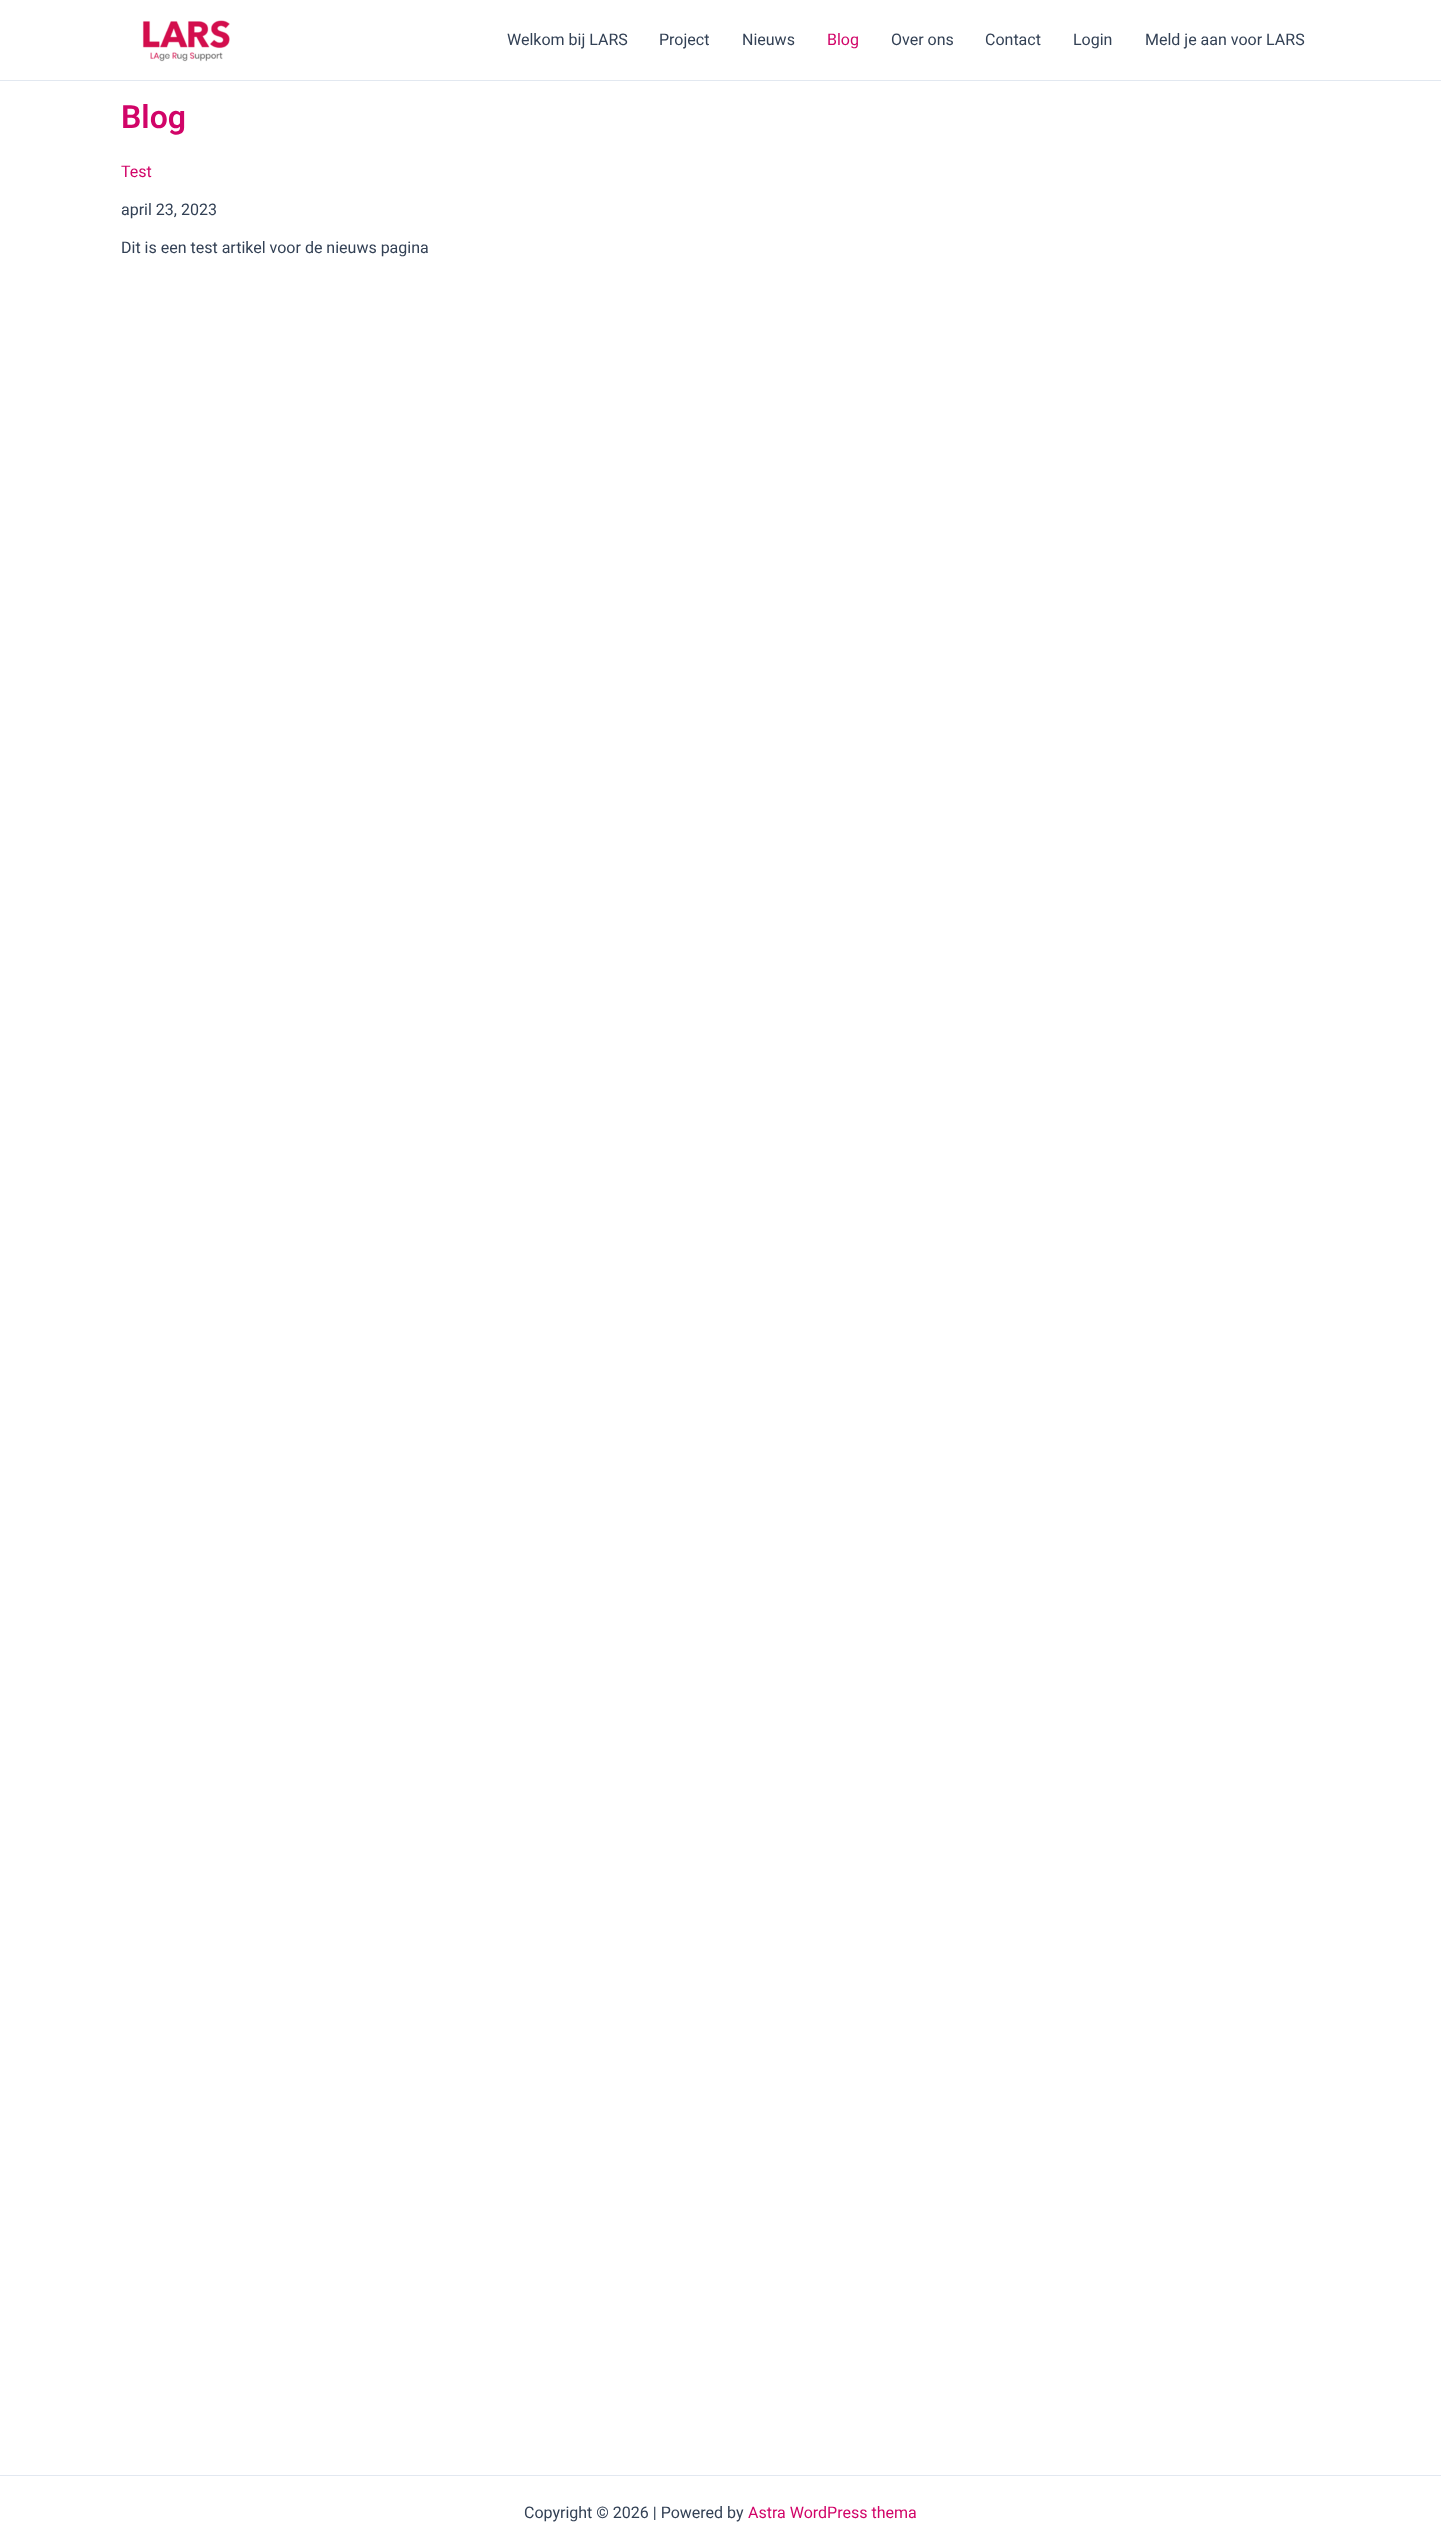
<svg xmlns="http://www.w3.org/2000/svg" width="1441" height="2546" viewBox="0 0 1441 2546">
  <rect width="100%" height="100%" fill="rgb(255,255,255)"/>
  <rect x="0" y="80" width="1441" height="1" fill="rgb(226,232,240)"/>
  <image x="142" y="20" width="88" height="42" href="pic1.png"/>
  <g font-family="Roboto" font-size="16" fill="rgb(51,65,85)">
    <text x="507" y="45">Welkom bij LARS</text>
    <text x="659" y="45">Project</text>
    <text x="742" y="45">Nieuws</text>
  </g>
  <text x="827" y="45" font-family="Roboto" font-size="16" fill="rgb(209,4,104)">Blog</text>
  <g font-family="Roboto" font-size="16" fill="rgb(51,65,85)">
    <text x="891" y="45">Over ons</text>
    <text x="985" y="45">Contact</text>
    <text x="1073" y="45">Login</text>
    <text x="1145" y="45">Meld je aan voor LARS</text>
  </g>
  <text x="121" y="128" font-family="Roboto" font-size="32" font-weight="600" fill="rgb(209,4,104)">Blog</text>
  <text x="121" y="177" font-family="Roboto" font-size="16" fill="rgb(209,4,104)">Test</text>
  <g font-family="Roboto" font-size="16" fill="rgb(51,65,85)">
    <text x="121" y="215">april 23, 2023</text>
    <text x="121" y="253">Dit is een test artikel voor de nieuws pagina</text>
  </g>
  <rect x="0" y="2475" width="1441" height="1" fill="rgb(226,232,240)"/>
  <text x="524" y="2518" font-family="Roboto" font-size="16" fill="rgb(51,65,85)">Copyright © 2026 | Powered by</text>
  <text x="748" y="2518" font-family="Roboto" font-size="16" fill="rgb(209,4,104)">Astra WordPress thema</text>
</svg>
